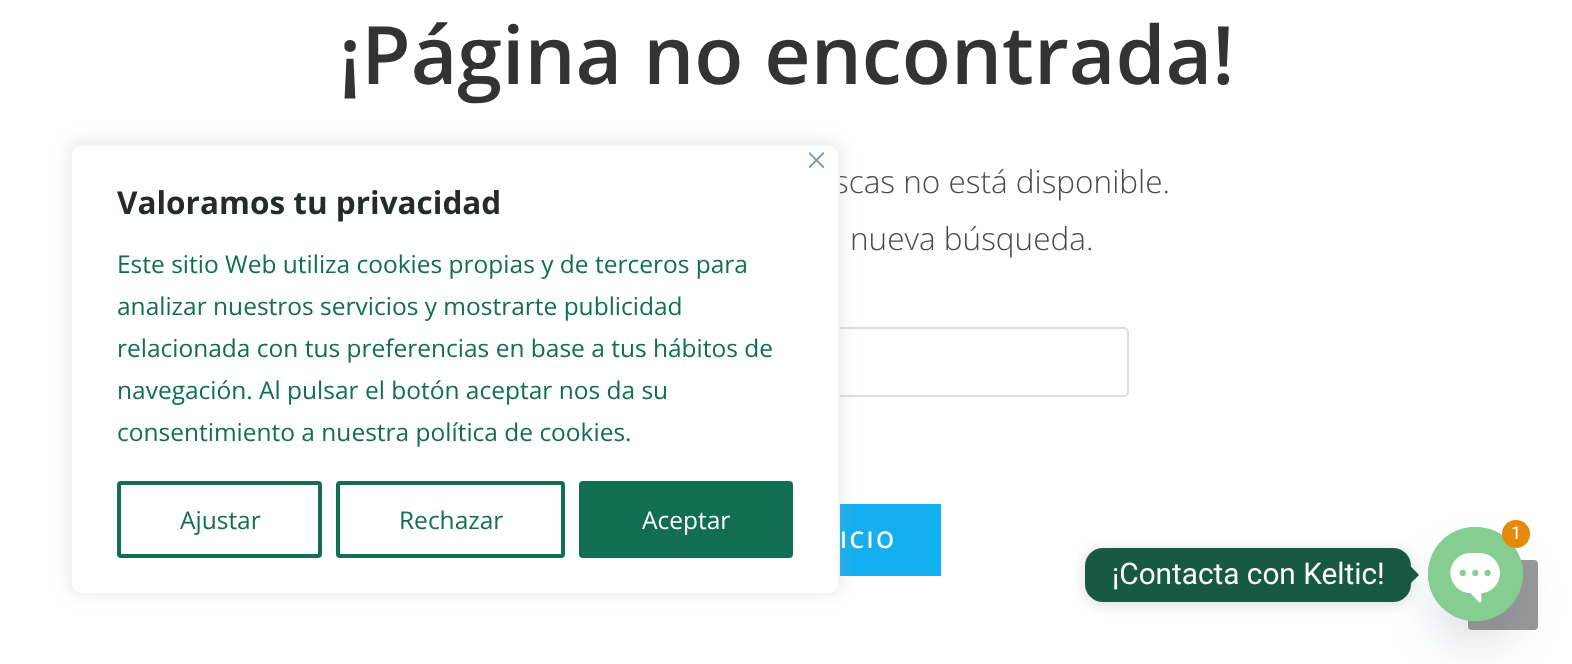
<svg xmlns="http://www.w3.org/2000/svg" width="1572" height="664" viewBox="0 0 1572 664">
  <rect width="100%" height="100%" fill="rgb(255,255,255)"/>
  <text x="339" y="84" font-family="Open Sans" font-size="80.5" font-weight="600" fill="rgb(51,51,51)">¡Página no encontrada!</text>
  <g font-family="Open Sans" font-size="31.5" font-weight="300" fill="rgb(74,74,74)">
    <text x="834" y="193">scas no está disponible.</text>
    <text x="850" y="250">nueva búsqueda.</text>
  </g>
  <rect x="447" y="328" width="681" height="68" rx="4" fill="none" stroke="rgb(221,221,221)" stroke-width="2"/>
  <rect x="840" y="504" width="101" height="72" fill="rgb(19,175,240)"/>
  <text x="840" y="548" font-family="Open Sans" font-size="23" font-weight="600" letter-spacing="2.5" fill="rgb(255,255,255)">ICIO</text>
  <rect x="70" y="142" width="770" height="451" rx="11" fill="rgba(172,171,171,0.3)" filter="blur(9px)"/>
  <rect x="71" y="145" width="768" height="449" rx="10" fill="rgb(255,255,255)" stroke="rgb(244,244,244)" stroke-width="2"/>
  <image x="809" y="152" width="15" height="16" href="pic1.png"/>
  <text x="117" y="214" font-family="Open Sans" font-size="31.5" font-weight="bold" fill="rgb(36,44,42)">Valoramos tu privacidad</text>
  <g font-family="Open Sans" font-size="24.5" fill="rgb(17,110,83)">
    <text>
      <tspan x="117" y="273">Este sitio Web utiliza cookies propias y de terceros para</tspan>
      <tspan x="117" y="315">analizar nuestros servicios y mostrarte publicidad</tspan>
      <tspan x="117" y="357">relacionada con tus preferencias en base a tus hábitos de</tspan>
      <tspan x="117" y="399">navegación. Al pulsar el botón aceptar nos da su</tspan>
      <tspan x="117" y="441">consentimiento a nuestra política de cookies.</tspan>
    </text>
  </g>
  <rect x="119" y="483" width="201" height="73" rx="2" fill="none" stroke="rgb(17,110,83)" stroke-width="4"/>
  <text x="180" y="529" font-family="Open Sans" font-size="24.5" fill="rgb(17,110,83)">Ajustar</text>
  <rect x="338" y="483" width="225" height="73" rx="2" fill="none" stroke="rgb(17,110,83)" stroke-width="4"/>
  <text x="399" y="529" font-family="Open Sans" font-size="24.5" fill="rgb(17,110,83)">Rechazar</text>
  <rect x="581" y="483" width="210" height="73" rx="2" fill="rgb(17,110,83)" stroke="rgb(17,110,83)" stroke-width="4"/>
  <text x="642" y="529" font-family="Open Sans" font-size="24.5" fill="rgb(255,255,255)">Aceptar</text>
  <rect x="1085" y="550" width="326" height="54" rx="18" fill="rgba(0,0,0,0.15)" filter="blur(7px)"/>
  <rect x="1085" y="548" width="326" height="54" rx="18" fill="rgb(23,89,67)"/>
  <path d="M1410.5 583.5V566L1419 575Z" fill="rgb(23,89,67)"/>
  <rect x="1468" y="560" width="70" height="70" rx="4" fill="rgb(153,153,153)"/>
  <rect x="1428" y="555" width="95" height="94" rx="47" fill="rgba(73,104,126,0.16)" filter="blur(21px)"/>
  <rect x="1428" y="527" width="95" height="94" rx="47" fill="rgb(134,205,145)"/>
  <circle cx="1516" cy="534" r="14" fill="rgb(228,137,9)"/>
  <text x="1511" y="539" font-family="Roboto" font-size="18" fill="rgb(255,255,255)">1</text>
  <image x="1428" y="527" width="72" height="94" href="pic2.png"/>
  <text x="1112" y="584" font-family="Roboto" font-size="29.75" fill="rgb(255,255,255)">¡Contacta con Keltic!</text>
</svg>
